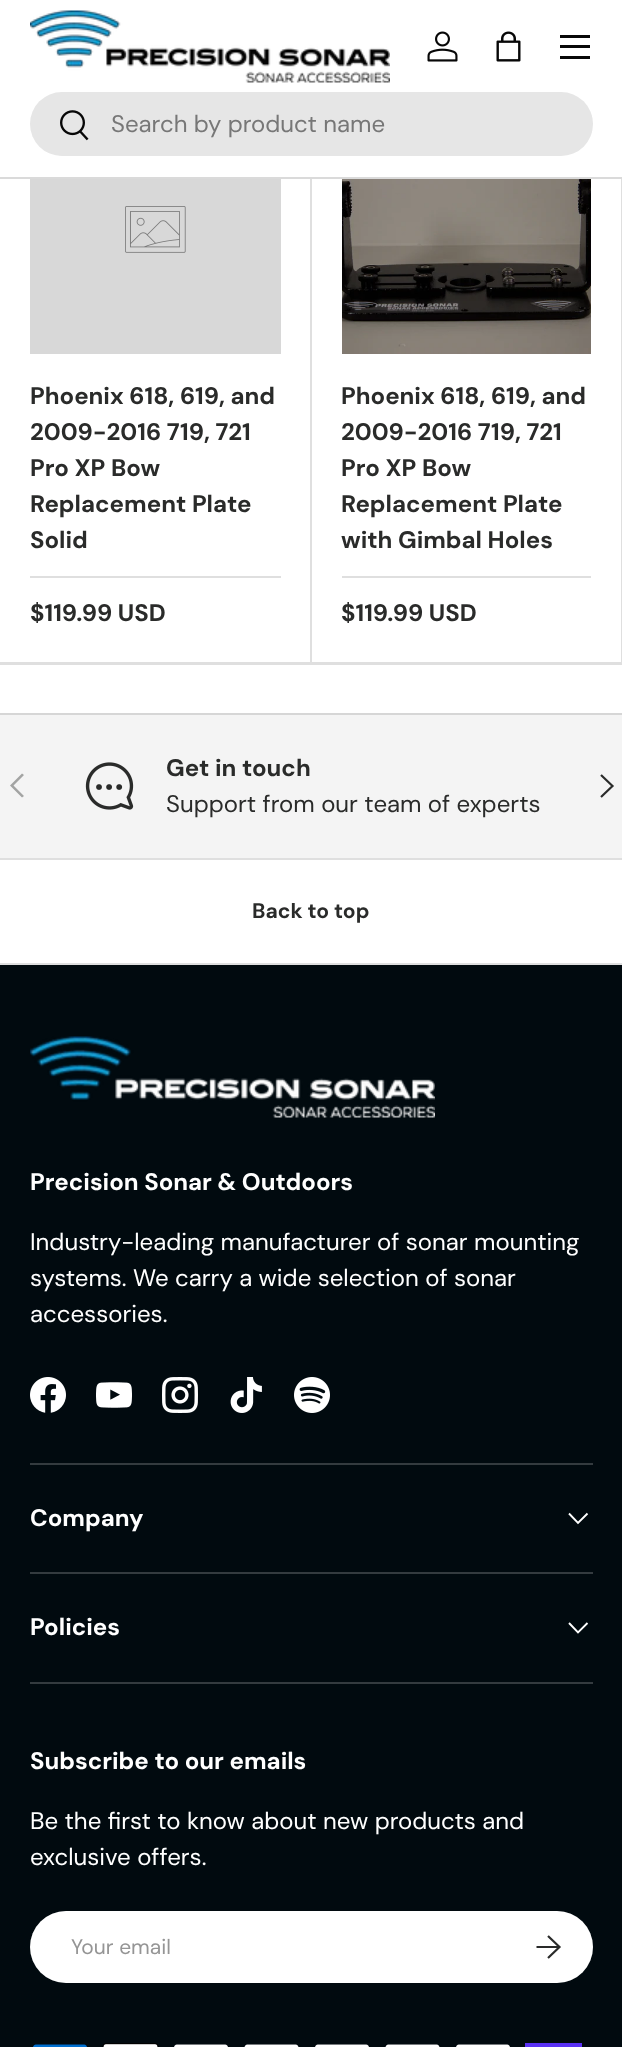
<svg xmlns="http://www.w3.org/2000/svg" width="622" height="2047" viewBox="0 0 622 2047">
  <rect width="100%" height="100%" fill="rgb(255,255,255)"/>
  <path d="M312 75V663L310 662V75Z" fill="rgba(42,43,42,0.15)"/>
  <path d="M622 75V663L621 662V75Z" fill="rgba(42,43,42,0.15)"/>
  <rect x="310" y="75" width="312" height="102" fill="rgb(255,255,255)"/>
  <rect x="0" y="177" width="622" height="2" fill="rgb(218,218,218)"/>
  <image x="30" y="10" width="360" height="73" href="pic1.png"/>
  <image x="427" y="31" width="31" height="31" href="pic2.png"/>
  <image x="496" y="31" width="25" height="31" href="pic3.png"/>
  <rect x="560" y="35" width="30" height="3" fill="rgb(7,7,7)"/>
  <rect x="560" y="56" width="30" height="3" fill="rgb(7,7,7)"/>
  <rect x="560" y="45" width="30" height="3" fill="rgb(7,7,7)"/>
  <rect x="30" y="92" width="563" height="64" rx="32" fill="rgb(230,230,230)"/>
  <image x="60" y="110" width="29" height="31" href="pic4.png"/>
  <text x="111" y="132" font-family="DM Sans" font-size="24" fill="rgb(119,119,119)">Search by product name</text>
  <rect x="0" y="663" width="622" height="2" fill="rgb(223,223,223)"/>
  <path d="M312 663H0V662H310Z" fill="rgba(42,43,42,0.15)"/>
  <rect x="30" y="179" width="251" height="175" fill="rgb(216,216,216)"/>
  <image x="125" y="206" width="61" height="47" href="pic5.png"/>
  <g font-family="DM Sans" font-size="24" font-weight="bold" fill="rgb(42,43,42)">
    <text>
      <tspan x="30" y="404">Phoenix 618, 619, and</tspan>
      <tspan x="30" y="440">2009-2016 719, 721</tspan>
      <tspan x="30" y="476">Pro XP Bow</tspan>
      <tspan x="30" y="512">Replacement Plate</tspan>
      <tspan x="30" y="548">Solid</tspan>
    </text>
  </g>
  <rect x="30" y="576" width="251" height="2" fill="rgb(223,223,223)"/>
  <text x="30" y="621" font-family="DM Sans" font-size="24" font-weight="bold" fill="rgb(42,43,42)">$119.99 USD</text>
  <path d="M622 663H312V662H621Z" fill="rgba(42,43,42,0.15)"/>
  <image x="342" y="179" width="249" height="175" href="pic6.png"/>
  <g font-family="DM Sans" font-size="24" font-weight="bold" fill="rgb(42,43,42)">
    <text>
      <tspan x="341" y="404">Phoenix 618, 619, and</tspan>
      <tspan x="341" y="440">2009-2016 719, 721</tspan>
      <tspan x="341" y="476">Pro XP Bow</tspan>
      <tspan x="341" y="512">Replacement Plate</tspan>
      <tspan x="341" y="548">with Gimbal Holes</tspan>
    </text>
  </g>
  <rect x="342" y="576" width="249" height="2" fill="rgb(223,223,223)"/>
  <text x="341" y="621" font-family="DM Sans" font-size="24" font-weight="bold" fill="rgb(42,43,42)">$119.99 USD</text>
  <rect x="0" y="715" width="622" height="143" fill="rgb(244,244,244)"/>
  <rect x="0" y="713" width="622" height="2" fill="rgb(214,214,214)"/>
  <image x="85" y="762" width="49" height="48" href="pic7.png"/>
  <text x="166" y="776" font-family="DM Sans" font-size="24" font-weight="bold" fill="rgb(42,43,42)">Get in touch</text>
  <text x="166" y="812" font-family="DM Sans" font-size="24" fill="rgb(42,43,42)">Support from our team of experts</text>
  <path d="M10 785.5L22 773.5L24 775L13.5 785.5L24 796L22 797.5Z" fill="rgb(163,164,163)"/>
  <path d="M601 775L612.5 786L601 797" fill="none" stroke="rgb(42,43,42)" stroke-width="2.2"/>
  <rect x="0" y="858" width="622" height="2" fill="rgb(223,223,223)"/>
  <rect x="0" y="963" width="622" height="2" fill="rgb(223,223,223)"/>
  <text x="252" y="918" font-family="'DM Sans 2'" font-size="21" font-weight="bold" fill="rgb(42,43,42)">Back to top</text>
  <rect x="0" y="965" width="622" height="1082" fill="rgb(1,10,15)"/>
  <image x="30" y="1036" width="405" height="82" href="pic8.png"/>
  <text x="30" y="1190" font-family="DM Sans" font-size="24" font-weight="bold" fill="rgb(255,255,255)">Precision Sonar &amp; Outdoors</text>
  <g font-family="DM Sans" font-size="24" fill="rgb(255,255,255)">
    <text>
      <tspan x="30" y="1250">Industry-leading manufacturer of sonar mounting</tspan>
      <tspan x="30" y="1286">systems. We carry a wide selection of sonar</tspan>
      <tspan x="30" y="1322">accessories.</tspan>
    </text>
  </g>
  <image x="30" y="1377" width="36" height="36" href="pic9.png"/>
  <image x="96" y="1382" width="36" height="26" href="pic10.png"/>
  <image x="162" y="1377" width="36" height="36" href="pic11.png"/>
  <image x="230" y="1377" width="32" height="36" href="pic12.png"/>
  <image x="294" y="1377" width="36" height="36" href="pic13.png"/>
  <rect x="30" y="1463" width="563" height="2" fill="rgb(52,59,63)"/>
  <rect x="30" y="1572" width="563" height="2" fill="rgb(52,59,63)"/>
  <text x="30" y="1526" font-family="DM Sans" font-size="24" font-weight="bold" fill="rgb(255,255,255)">Company</text>
  <path d="M587.5 1513.5L578 1523L569 1513.5" fill="none" stroke="rgb(255,255,255)" stroke-width="1.9"/>
  <rect x="30" y="1682" width="563" height="2" fill="rgb(52,59,63)"/>
  <text x="30" y="1635" font-family="DM Sans" font-size="24" font-weight="bold" fill="rgb(255,255,255)">Policies</text>
  <path d="M587.5 1623L578 1632.5L569 1623" fill="none" stroke="rgb(255,255,255)" stroke-width="1.9"/>
  <text x="30" y="1769" font-family="DM Sans" font-size="24" font-weight="bold" fill="rgb(255,255,255)">Subscribe to our emails</text>
  <g font-family="DM Sans" font-size="24" fill="rgb(255,255,255)">
    <text>
      <tspan x="30" y="1829">Be the first to know about new products and</tspan>
      <tspan x="30" y="1865">exclusive offers.</tspan>
    </text>
  </g>
  <rect x="30" y="1911" width="563" height="72" rx="36" fill="rgb(255,255,255)"/>
  <rect x="31.5" y="1912.5" width="560" height="69" rx="34.5" fill="none" stroke="rgba(255,255,255,0.2)" stroke-width="3"/>
  <text x="71" y="1954" font-family="'DM Sans 2'" font-size="21" fill="rgb(149,149,149)">Your email</text>
  <path d="M536.5 1947H558.5M548 1936L559.5 1947L548 1958" fill="none" stroke="rgb(42,43,42)" stroke-width="2.2"/>
  <image x="33" y="2044" width="54" height="3" href="pic14.png"/>
  <image x="102" y="2043" width="57" height="4" href="pic15.png"/>
  <image x="174" y="2044" width="54" height="3" href="pic16.png"/>
  <image x="244" y="2044" width="55" height="3" href="pic17.png"/>
  <image x="315" y="2044" width="54" height="3" href="pic16.png"/>
  <image x="385" y="2044" width="55" height="3" href="pic17.png"/>
  <image x="456" y="2044" width="54" height="3" href="pic16.png"/>
  <rect x="525" y="2043" width="57" height="4" fill="rgb(90,49,244)"/>
</svg>
